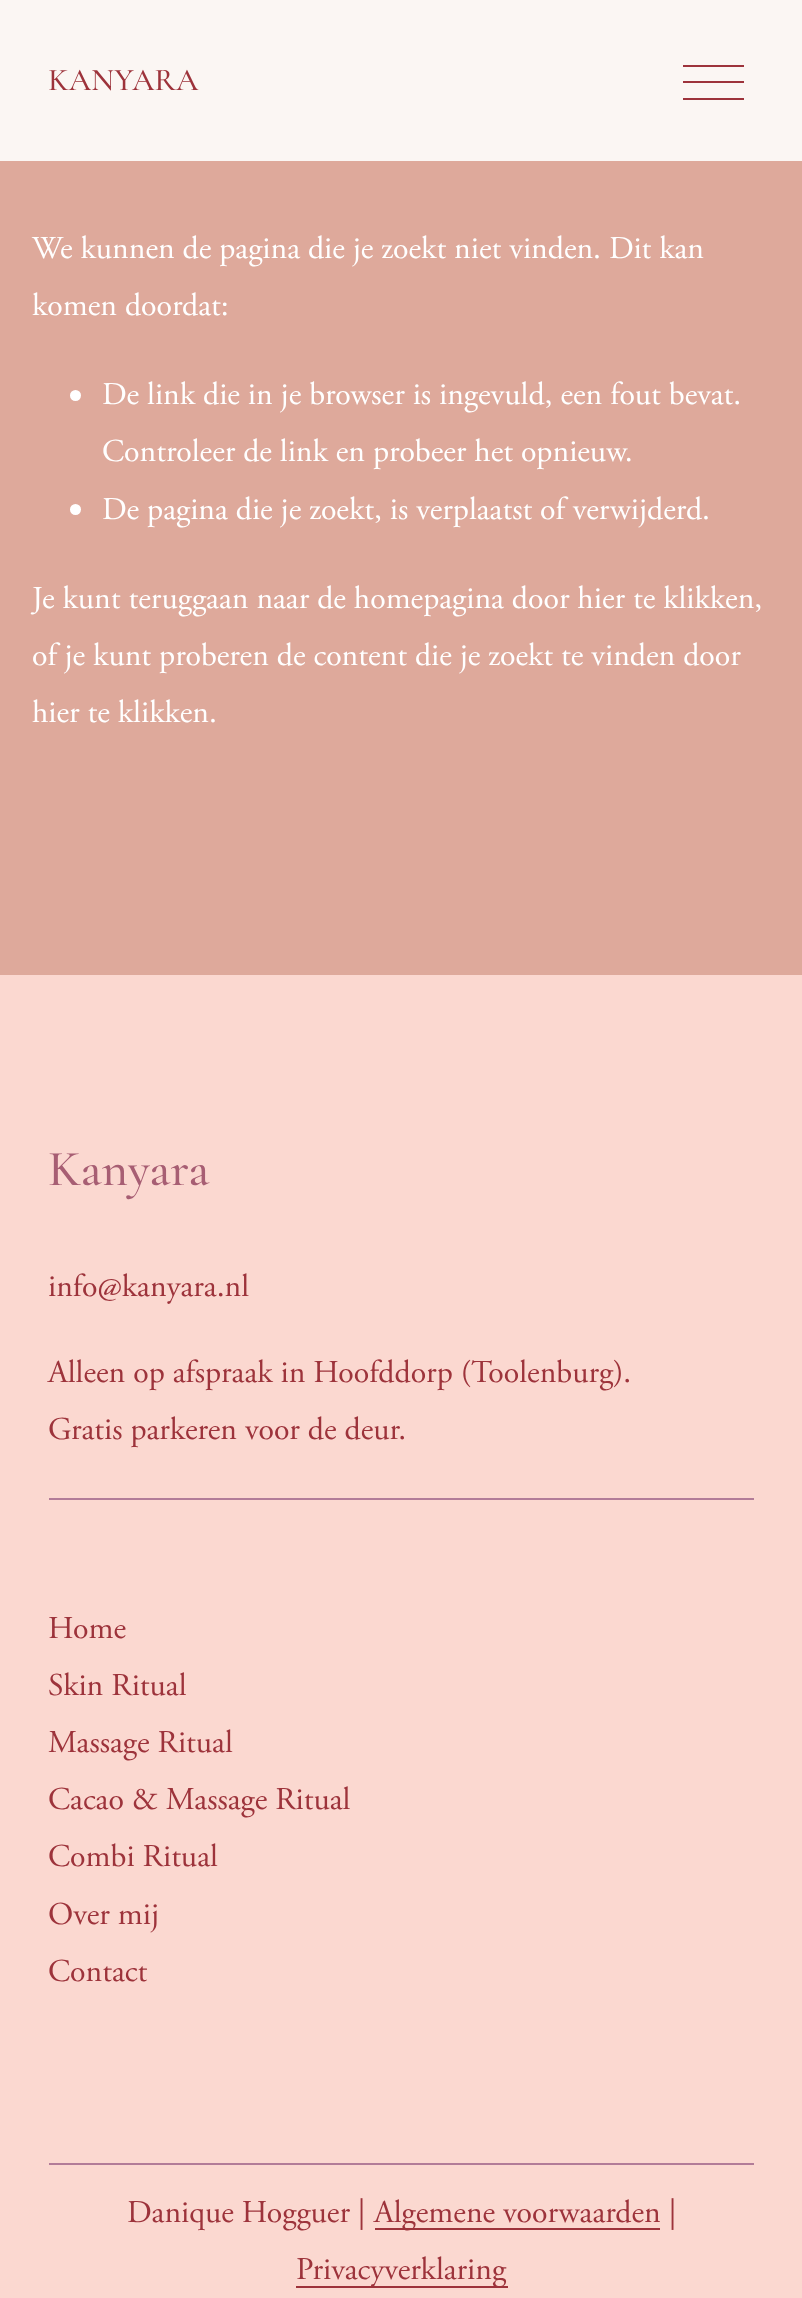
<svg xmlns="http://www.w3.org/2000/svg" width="802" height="2298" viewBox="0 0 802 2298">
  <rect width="100%" height="100%" fill="rgb(222,169,155)"/>
  <rect x="0" y="0" width="802" height="161" fill="rgb(251,246,243)"/>
  <text x="48" y="90" font-family="Cormorant Garamond" font-size="31.75" font-weight="500" fill="rgb(157,51,59)">KANYARA</text>
  <rect x="683" y="65" width="61" height="2" fill="rgb(157,51,59)"/>
  <rect x="683" y="81" width="61" height="2" fill="rgb(157,51,59)"/>
  <rect x="683" y="98" width="61" height="2" fill="rgb(157,51,59)"/>
  <g font-family="Adobe Garamond" font-size="31.75" fill="rgb(255,255,255)">
    <text>
      <tspan x="32" y="258">We kunnen de pagina die je zoekt niet vinden. Dit kan</tspan>
      <tspan x="32" y="315">komen doordat:</tspan>
    </text>
  </g>
  <circle cx="75.5" cy="395.5" r="5.5" fill="rgb(255,255,255)"/>
  <g font-family="Adobe Garamond" font-size="31.75" fill="rgb(255,255,255)">
    <text>
      <tspan x="102" y="404">De link die in je browser is ingevuld, een fout bevat.</tspan>
      <tspan x="102" y="461">Controleer de link en probeer het opnieuw.</tspan>
    </text>
  </g>
  <circle cx="75.5" cy="509.5" r="5.5" fill="rgb(255,255,255)"/>
  <g font-family="Adobe Garamond" font-size="31.75" fill="rgb(255,255,255)">
    <text x="102" y="519">De pagina die je zoekt, is verplaatst of verwijderd.</text>
    <text>
      <tspan x="32" y="608">Je kunt teruggaan naar de homepagina door hier te klikken,</tspan>
      <tspan x="32" y="665">of je kunt proberen de content die je zoekt te vinden door</tspan>
      <tspan x="32" y="722">hier te klikken.</tspan>
    </text>
  </g>
  <rect x="0" y="975" width="802" height="1323" fill="rgb(251,216,208)"/>
  <text x="48" y="1185" font-family="Cormorant Garamond" font-size="50.5" font-weight="500" fill="rgb(167,94,115)">Kanyara</text>
  <g font-family="Adobe Garamond" font-size="31.75" fill="rgb(157,51,59)">
    <text x="48" y="1296">info@kanyara.nl</text>
    <text>
      <tspan x="48" y="1382">Alleen op afspraak in Hoofddorp (Toolenburg).</tspan>
      <tspan x="48" y="1439">Gratis parkeren voor de deur.</tspan>
    </text>
  </g>
  <rect x="49" y="1498" width="705" height="2" fill="rgb(178,124,152)"/>
  <g font-family="Adobe Garamond" font-size="31.75" fill="rgb(157,51,59)">
    <text>
      <tspan x="48" y="1638">Home</tspan>
      <tspan x="48" y="1695">Skin Ritual</tspan>
      <tspan x="48" y="1752">Massage Ritual</tspan>
      <tspan x="48" y="1809">Cacao &amp; Massage Ritual</tspan>
      <tspan x="48" y="1866">Combi Ritual</tspan>
      <tspan x="48" y="1924">Over mij</tspan>
      <tspan x="48" y="1981">Contact</tspan>
    </text>
  </g>
  <rect x="49" y="2163" width="705" height="2" fill="rgb(178,124,152)"/>
  <text x="127" y="2222" font-family="Adobe Garamond" font-size="31.75" fill="rgb(157,51,59)">Danique Hogguer |</text>
  <rect x="375" y="2228" width="285" height="2" fill="rgb(157,51,59)"/>
  <text x="374" y="2222" font-family="Adobe Garamond" font-size="31.75" fill="rgb(157,51,59)">Algemene voorwaarden |</text>
  <rect x="296" y="2286" width="212" height="2" fill="rgb(157,51,59)"/>
  <text x="296" y="2279" font-family="Adobe Garamond" font-size="31.75" fill="rgb(157,51,59)">Privacyverklaring</text>
</svg>
